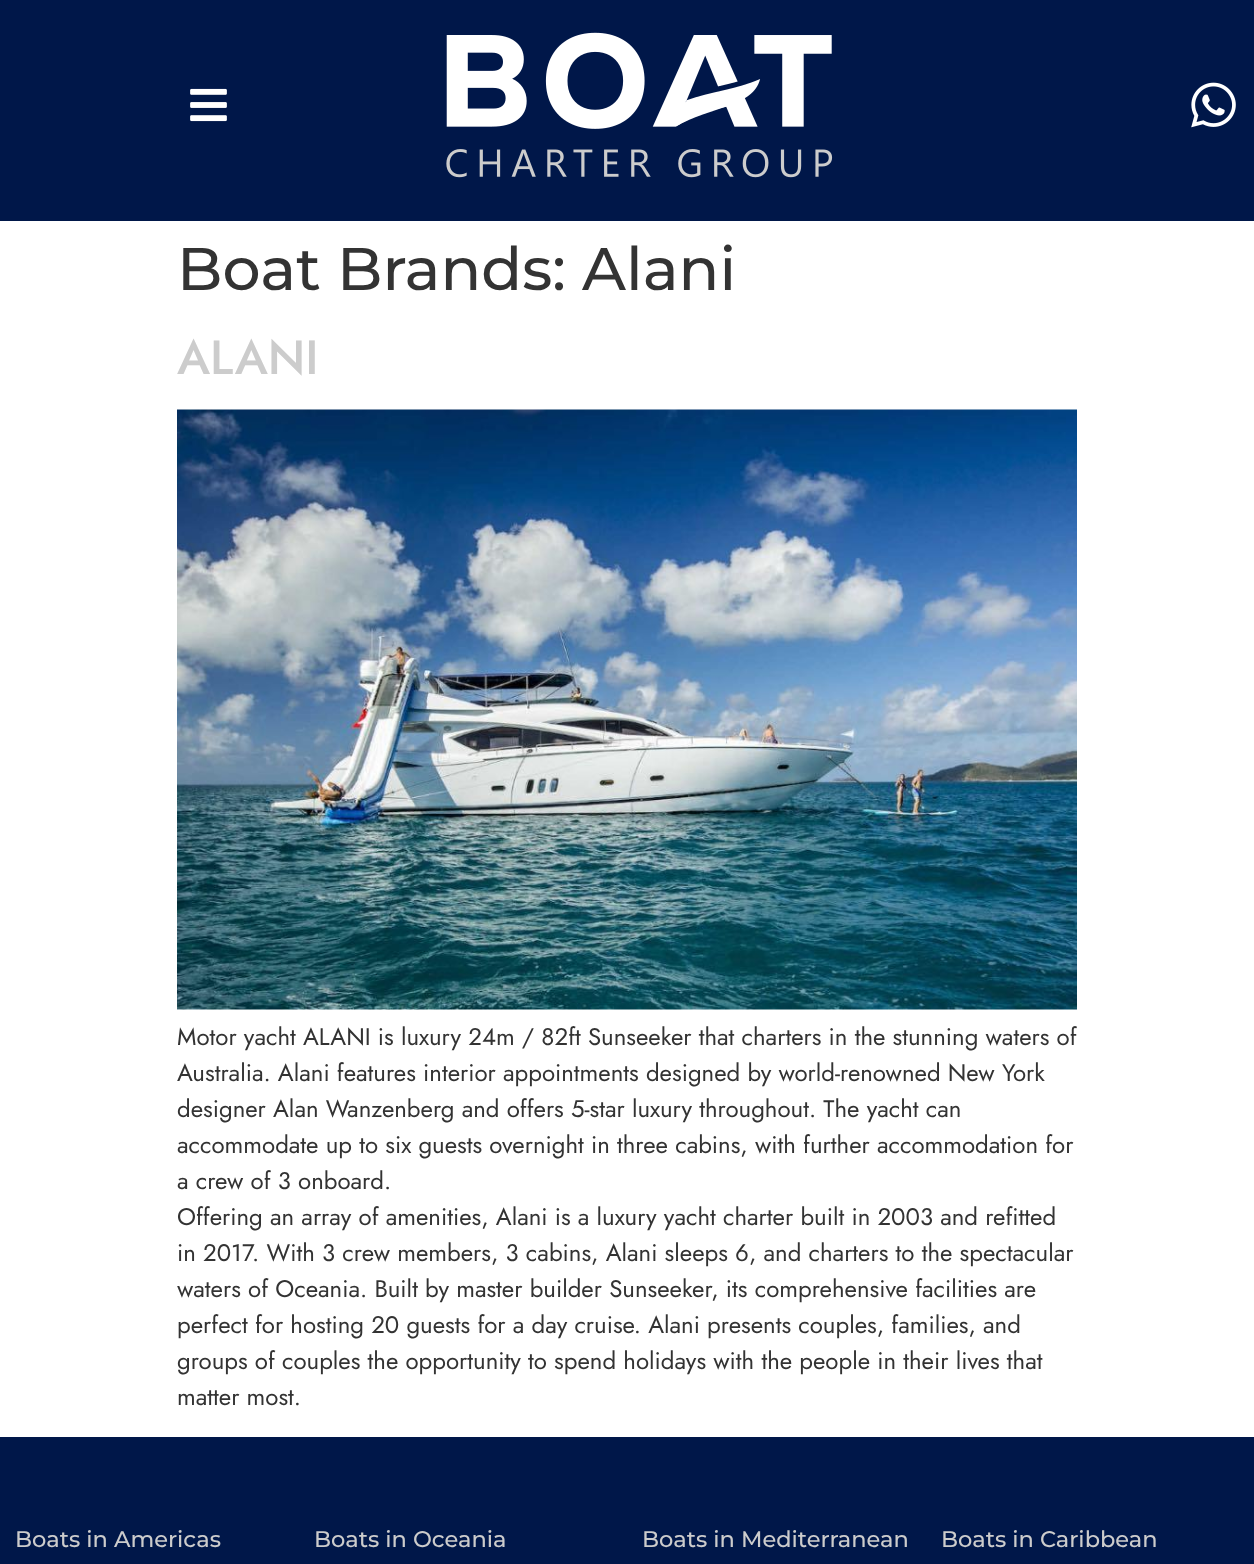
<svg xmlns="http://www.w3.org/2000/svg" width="1254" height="1564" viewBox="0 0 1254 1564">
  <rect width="100%" height="100%" fill="rgb(255,255,255)"/>
  <rect x="0" y="0" width="1254" height="221" fill="rgb(0,23,73)"/>
  <image x="190" y="88" width="37" height="34" href="pic1.png"/>
  <image x="446" y="32" width="387" height="146" href="pic2.png"/>
  <image x="1191" y="82" width="45" height="46" href="pic3.png"/>
  <text x="177" y="290" font-family="Montserrat" font-size="60" font-weight="500" fill="rgb(51,51,51)">Boat Brands: Alani</text>
  <text x="177" y="374" font-family="Jost" font-size="48" font-weight="500" fill="rgb(204,204,204)">ALANI</text>
  <image x="177" y="409" width="900" height="601" href="pic4.png"/>
  <g font-family="Jost" font-size="24" fill="rgb(51,51,51)">
    <text>
      <tspan x="177" y="1045">Motor yacht ALANI is luxury 24m / 82ft Sunseeker that charters in the stunning waters of</tspan>
      <tspan x="177" y="1081">Australia. Alani features interior appointments designed by world-renowned New York</tspan>
      <tspan x="177" y="1117">designer Alan Wanzenberg and offers 5-star luxury throughout. The yacht can</tspan>
      <tspan x="177" y="1153">accommodate up to six guests overnight in three cabins, with further accommodation for</tspan>
      <tspan x="177" y="1189">a crew of 3 onboard.</tspan>
      <tspan x="177" y="1225">Offering an array of amenities, Alani is a luxury yacht charter built in 2003 and refitted</tspan>
      <tspan x="177" y="1261">in 2017. With 3 crew members, 3 cabins, Alani sleeps 6, and charters to the spectacular</tspan>
      <tspan x="177" y="1297">waters of Oceania. Built by master builder Sunseeker, its comprehensive facilities are</tspan>
      <tspan x="177" y="1333">perfect for hosting 20 guests for a day cruise. Alani presents couples, families, and</tspan>
      <tspan x="177" y="1369">groups of couples the opportunity to spend holidays with the people in their lives that</tspan>
      <tspan x="177" y="1405">matter most.</tspan>
    </text>
  </g>
  <rect x="0" y="1437" width="1254" height="127" fill="rgb(0,23,73)"/>
  <g font-family="Montserrat" font-size="22.5" font-weight="500" fill="rgb(204,204,204)">
    <text x="15" y="1547">Boats in Americas</text>
    <text x="314" y="1547">Boats in Oceania</text>
    <text x="642" y="1547">Boats in Mediterranean</text>
    <text x="941" y="1547">Boats in Caribbean</text>
  </g>
</svg>
